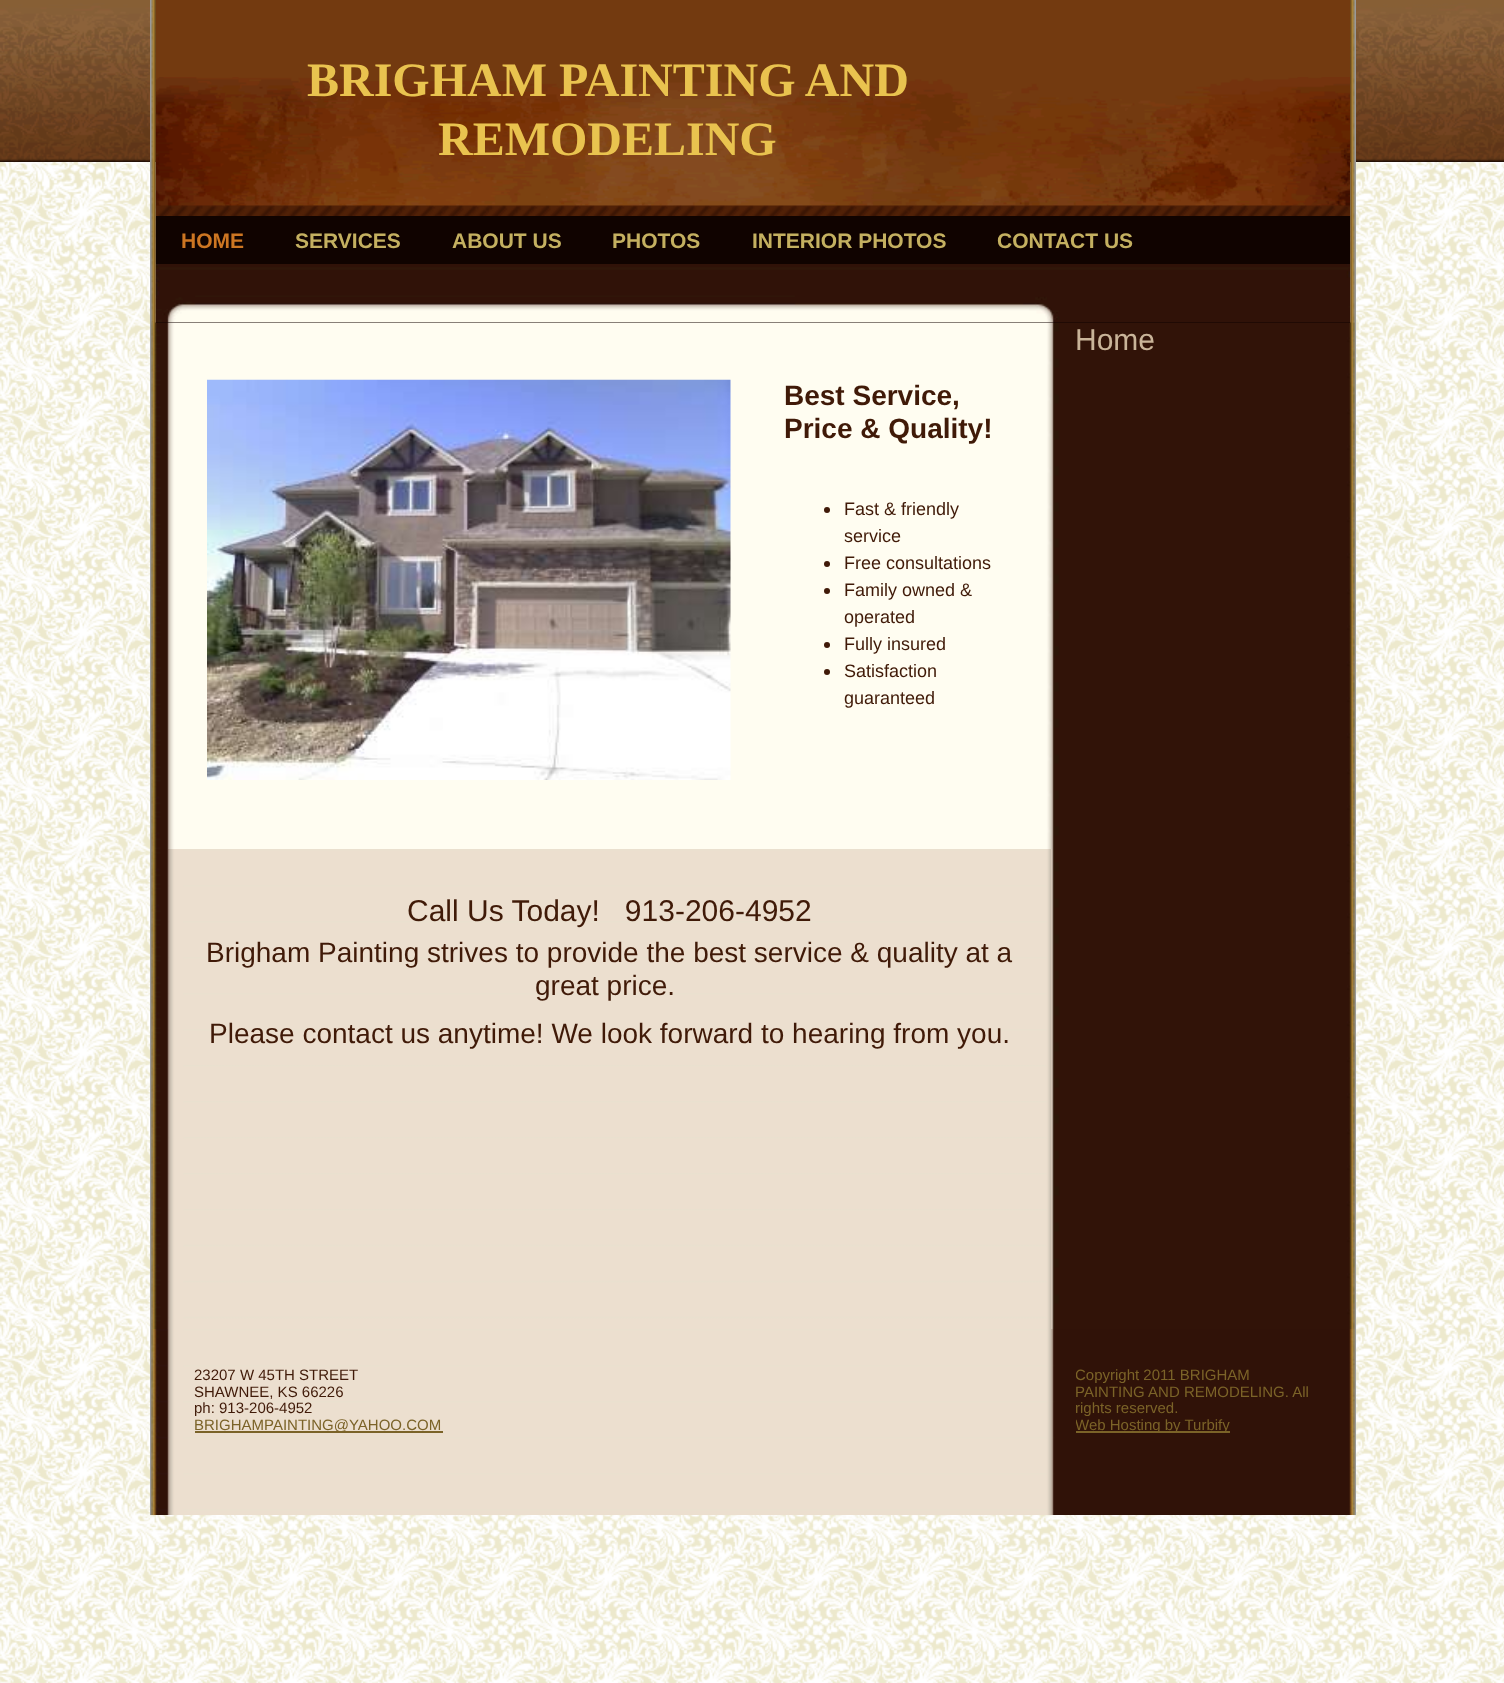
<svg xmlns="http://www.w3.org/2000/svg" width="1504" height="1683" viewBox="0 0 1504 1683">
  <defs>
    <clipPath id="clip1"><rect x="1076" y="1367" width="247" height="66"/></clipPath>
  </defs>
  <rect width="100%" height="100%" fill="rgb(255,255,255)"/>
  <image x="0" y="162" width="1504" height="1521" href="pic1.png"/>
  <image x="0" y="0" width="1504" height="162" href="pic2.png"/>
  <image x="150" y="0" width="1206" height="1515" href="pic3.png"/>
  <rect x="156" y="0" width="1194" height="77" fill="rgb(115,58,16)"/>
  <image x="156" y="77" width="1194" height="129" href="pic4.png"/>
  <g font-family="Liberation Serif" font-size="48" font-weight="bold" fill="rgb(233,195,79)">
    <text x="307" y="96">BRIGHAM PAINTING AND</text>
    <text x="438" y="155">REMODELING</text>
  </g>
  <image x="156" y="205" width="1194" height="11" href="pic5.png"/>
  <image x="151" y="322" width="1204" height="1007" href="pic7.png"/>
  <rect x="156" y="216" width="1194" height="107" fill="rgb(16,3,0)"/>
  <image x="156" y="264" width="1194" height="59" href="pic6.png"/>
  <text x="181" y="248" font-family="Liberation Sans" font-size="21" font-weight="bold" fill="rgb(205,118,34)">HOME</text>
  <g font-family="Liberation Sans" font-size="21" font-weight="bold" fill="rgb(196,176,96)">
    <text x="295" y="248">SERVICES</text>
    <text x="452" y="248">ABOUT US</text>
    <text x="612" y="248">PHOTOS</text>
    <text x="752" y="248">INTERIOR PHOTOS</text>
    <text x="997" y="248">CONTACT US</text>
  </g>
  <text x="1075" y="350" font-family="Liberation Sans" font-size="30" fill="rgb(201,180,153)">Home</text>
  <image x="207" y="379" width="524" height="401" href="pic8.png"/>
  <g font-family="Liberation Sans" font-size="28" font-weight="bold" fill="rgb(64,26,8)">
    <text>
      <tspan x="784" y="405">Best Service,</tspan>
      <tspan x="784" y="438">Price &amp; Quality!</tspan>
    </text>
  </g>
  <circle cx="827" cy="510" r="3" fill="rgb(64,26,8)"/>
  <g font-family="Liberation Sans" font-size="18" fill="rgb(64,26,8)">
    <text>
      <tspan x="844" y="515">Fast &amp; friendly</tspan>
      <tspan x="844" y="542">service</tspan>
    </text>
  </g>
  <circle cx="827" cy="564" r="3" fill="rgb(64,26,8)"/>
  <text x="844" y="569" font-family="Liberation Sans" font-size="18" fill="rgb(64,26,8)">Free consultations</text>
  <circle cx="827" cy="591" r="3" fill="rgb(64,26,8)"/>
  <g font-family="Liberation Sans" font-size="18" fill="rgb(64,26,8)">
    <text>
      <tspan x="844" y="596">Family owned &amp;</tspan>
      <tspan x="844" y="623">operated</tspan>
    </text>
  </g>
  <circle cx="827" cy="645" r="3" fill="rgb(64,26,8)"/>
  <text x="844" y="650" font-family="Liberation Sans" font-size="18" fill="rgb(64,26,8)">Fully insured</text>
  <circle cx="827" cy="672" r="3" fill="rgb(64,26,8)"/>
  <g font-family="Liberation Sans" font-size="18" fill="rgb(64,26,8)">
    <text>
      <tspan x="844" y="677">Satisfaction</tspan>
      <tspan x="844" y="704">guaranteed</tspan>
    </text>
  </g>
  <rect x="1051" y="849" width="1" height="480" fill="rgb(236,223,207)"/>
  <image x="168" y="849" width="884" height="480" href="pic9.png"/>
  <text x="407" y="921" font-family="Liberation Sans" font-size="30" fill="rgb(64,26,8)" xml:space="preserve">Call Us Today!   913-206-4952</text>
  <g font-family="Liberation Sans" font-size="28" fill="rgb(64,26,8)">
    <text x="206" y="962">Brigham Painting strives to provide the best service &amp; quality at a</text>
    <text x="535" y="995">great price.</text>
    <text x="209" y="1043">Please contact us anytime! We look forward to hearing from you.</text>
  </g>
  <image x="151" y="1329" width="1204" height="186" href="pic10.png"/>
  <g font-family="Liberation Sans" font-size="15" fill="rgb(64,26,8)">
    <text>
      <tspan x="194" y="1380">23207 W 45TH STREET</tspan>
      <tspan x="194" y="1397">SHAWNEE, KS 66226</tspan>
      <tspan x="194" y="1413">ph: 913-206-4952</tspan>
    </text>
  </g>
  <rect x="195" y="1431" width="248" height="2" fill="rgb(123,99,40)"/>
  <text x="194" y="1430" font-family="Liberation Sans" font-size="15" fill="rgb(123,99,40)">BRIGHAMPAINTING@YAHOO.COM</text>
  <g clip-path="url(#clip1)">
    <text x="1075" y="1380" font-family="Liberation Sans" font-size="15" fill="rgb(123,99,40)">Copyright 2011 BRIGHAM</text>
  </g>
  <text x="1075" y="1397" font-family="Liberation Sans" font-size="15" fill="rgb(123,99,40)">PAINTING AND REMODELING. All</text>
  <g clip-path="url(#clip1)">
    <text x="1075" y="1413" font-family="Liberation Sans" font-size="15" fill="rgb(123,99,40)">rights reserved.</text>
  </g>
  <rect x="1076" y="1431" width="154" height="2" fill="rgb(123,99,40)"/>
  <g clip-path="url(#clip1)">
    <text x="1075" y="1430" font-family="Liberation Sans" font-size="15" fill="rgb(123,99,40)">Web Hosting by Turbify</text>
  </g>
</svg>
